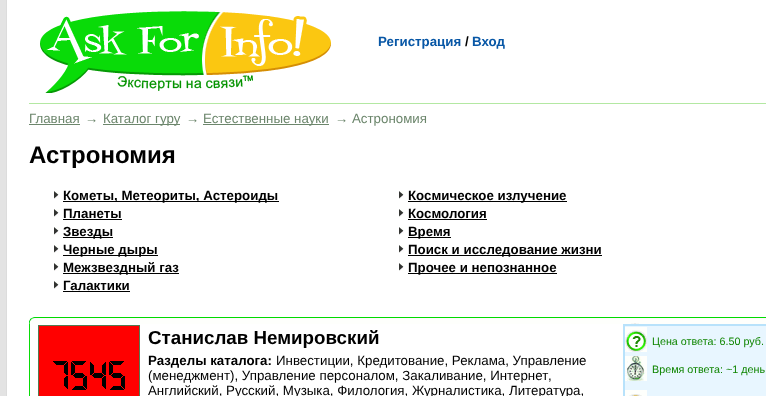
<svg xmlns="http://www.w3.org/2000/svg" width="766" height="396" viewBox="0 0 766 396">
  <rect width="100%" height="100%" fill="rgb(227,227,227)"/>
  <rect x="6" y="0" width="1" height="396" fill="rgb(220,220,220)"/>
  <rect x="7" y="0" width="759" height="396" fill="rgb(255,255,255)"/>
  <image x="40" y="11" width="291" height="82" href="pic1.png"/>
  <text x="378" y="46" font-family="Liberation Sans" font-size="13.3" font-weight="bold" fill="rgb(8,87,166)">Регистрация</text>
  <text x="465" y="46" font-family="Liberation Sans" font-size="13.3" font-weight="bold" fill="rgb(0,0,0)">/</text>
  <text x="472" y="46" font-family="Liberation Sans" font-size="13.3" font-weight="bold" fill="rgb(8,87,166)">Вход</text>
  <rect x="29" y="103" width="737" height="1" fill="rgb(179,232,162)"/>
  <text x="29" y="123" font-family="Liberation Sans" font-size="13.3" fill="rgb(108,134,108)">Главная</text>
  <rect x="29" y="124" width="51" height="1" fill="rgb(108,134,108)"/>
  <text x="85" y="123" font-family="Liberation Sans" font-size="13.3" fill="rgb(108,134,108)">→</text>
  <rect x="103" y="124" width="77" height="1" fill="rgb(108,134,108)"/>
  <g font-family="Liberation Sans" font-size="13.3" fill="rgb(108,134,108)">
    <text x="103" y="123">Каталог гуру</text>
    <text x="186" y="123">→</text>
  </g>
  <rect x="203" y="124" width="126" height="1" fill="rgb(108,134,108)"/>
  <g font-family="Liberation Sans" font-size="13.3" fill="rgb(108,134,108)">
    <text x="203" y="123">Естественные науки</text>
    <text x="335" y="123">→ Астрономия</text>
  </g>
  <text x="29" y="163" font-family="Liberation Sans" font-size="24" font-weight="bold" fill="rgb(0,0,0)">Астрономия</text>
  <image x="54" y="191" width="5" height="8" href="pic2.png"/>
  <rect x="63" y="201" width="216" height="1" fill="rgb(0,0,0)"/>
  <text x="63" y="200" font-family="Liberation Sans" font-size="13.3" font-weight="bold" fill="rgb(0,0,0)">Кометы, Метеориты, Астероиды</text>
  <image x="54" y="209" width="5" height="8" href="pic2.png"/>
  <text x="63" y="218" font-family="Liberation Sans" font-size="13.3" font-weight="bold" fill="rgb(0,0,0)">Планеты</text>
  <rect x="63" y="219" width="59" height="1" fill="rgb(0,0,0)"/>
  <image x="54" y="227" width="5" height="8" href="pic2.png"/>
  <rect x="63" y="237" width="50" height="1" fill="rgb(0,0,0)"/>
  <text x="63" y="236" font-family="Liberation Sans" font-size="13.3" font-weight="bold" fill="rgb(0,0,0)">Звезды</text>
  <image x="54" y="245" width="5" height="8" href="pic2.png"/>
  <rect x="63" y="255" width="95" height="1" fill="rgb(0,0,0)"/>
  <text x="63" y="254" font-family="Liberation Sans" font-size="13.3" font-weight="bold" fill="rgb(0,0,0)">Черные дыры</text>
  <image x="54" y="263" width="5" height="8" href="pic2.png"/>
  <rect x="63" y="273" width="116" height="1" fill="rgb(0,0,0)"/>
  <text x="63" y="272" font-family="Liberation Sans" font-size="13.3" font-weight="bold" fill="rgb(0,0,0)">Межзвездный газ</text>
  <image x="54" y="281" width="5" height="8" href="pic2.png"/>
  <text x="63" y="290" font-family="Liberation Sans" font-size="13.3" font-weight="bold" fill="rgb(0,0,0)">Галактики</text>
  <rect x="63" y="291" width="67" height="1" fill="rgb(0,0,0)"/>
  <image x="399" y="191" width="5" height="8" href="pic2.png"/>
  <rect x="408" y="201" width="159" height="1" fill="rgb(0,0,0)"/>
  <text x="408" y="200" font-family="Liberation Sans" font-size="13.3" font-weight="bold" fill="rgb(0,0,0)">Космическое излучение</text>
  <image x="399" y="209" width="5" height="8" href="pic2.png"/>
  <text x="408" y="218" font-family="Liberation Sans" font-size="13.3" font-weight="bold" fill="rgb(0,0,0)">Космология</text>
  <rect x="408" y="219" width="79" height="1" fill="rgb(0,0,0)"/>
  <image x="399" y="227" width="5" height="8" href="pic2.png"/>
  <rect x="408" y="237" width="43" height="1" fill="rgb(0,0,0)"/>
  <text x="408" y="236" font-family="Liberation Sans" font-size="13.3" font-weight="bold" fill="rgb(0,0,0)">Время</text>
  <image x="399" y="245" width="5" height="8" href="pic2.png"/>
  <rect x="408" y="255" width="194" height="1" fill="rgb(0,0,0)"/>
  <text x="408" y="254" font-family="Liberation Sans" font-size="13.3" font-weight="bold" fill="rgb(0,0,0)">Поиск и исследование жизни</text>
  <image x="399" y="263" width="5" height="8" href="pic2.png"/>
  <rect x="408" y="273" width="149" height="1" fill="rgb(0,0,0)"/>
  <text x="408" y="272" font-family="Liberation Sans" font-size="13.3" font-weight="bold" fill="rgb(0,0,0)">Прочее и непознанное</text>
  <image x="29" y="317" width="737" height="7" href="pic3.png"/>
  <rect x="29" y="324" width="1" height="72" fill="rgb(9,219,8)"/>
  <rect x="38.5" y="325.5" width="101" height="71" fill="none" stroke="rgb(82,123,82)"/>
  <image x="39" y="326" width="100" height="70" href="pic4.png"/>
  <text x="148" y="344" font-family="Liberation Sans" font-size="18.75" font-weight="bold" fill="rgb(0,0,0)">Станислав Немировский</text>
  <text x="148" y="365" font-family="Liberation Sans" font-size="13.3" font-weight="bold" fill="rgb(0,0,0)">Разделы каталога:</text>
  <g font-family="Liberation Sans" font-size="13.3" fill="rgb(0,0,0)">
    <text x="276" y="365">Инвестиции, Кредитование, Реклама, Управление</text>
    <text x="148" y="380">(менеджмент), Управление персоналом, Закаливание, Интернет</text>
    <text x="548" y="380">,</text>
    <text x="148" y="395">Английский, Русский, Музыка, Филология, Журналистика, Литература,</text>
  </g>
  <rect x="624" y="325" width="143" height="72" fill="rgb(232,246,255)" stroke="rgb(184,226,251)" stroke-width="2"/>
  <image x="625" y="327" width="22" height="25" href="pic5.png"/>
  <text x="652" y="345" font-family="Liberation Sans" font-size="10.75" fill="rgb(15,133,0)">Цена ответа: 6.50 руб.</text>
  <image x="625" y="356" width="22" height="25" href="pic6.png"/>
  <text x="652" y="373" font-family="Liberation Sans" font-size="10.75" fill="rgb(15,133,0)">Время ответа: ~1 день</text>
  <image x="625" y="390" width="22" height="6" href="pic7.png"/>
</svg>
